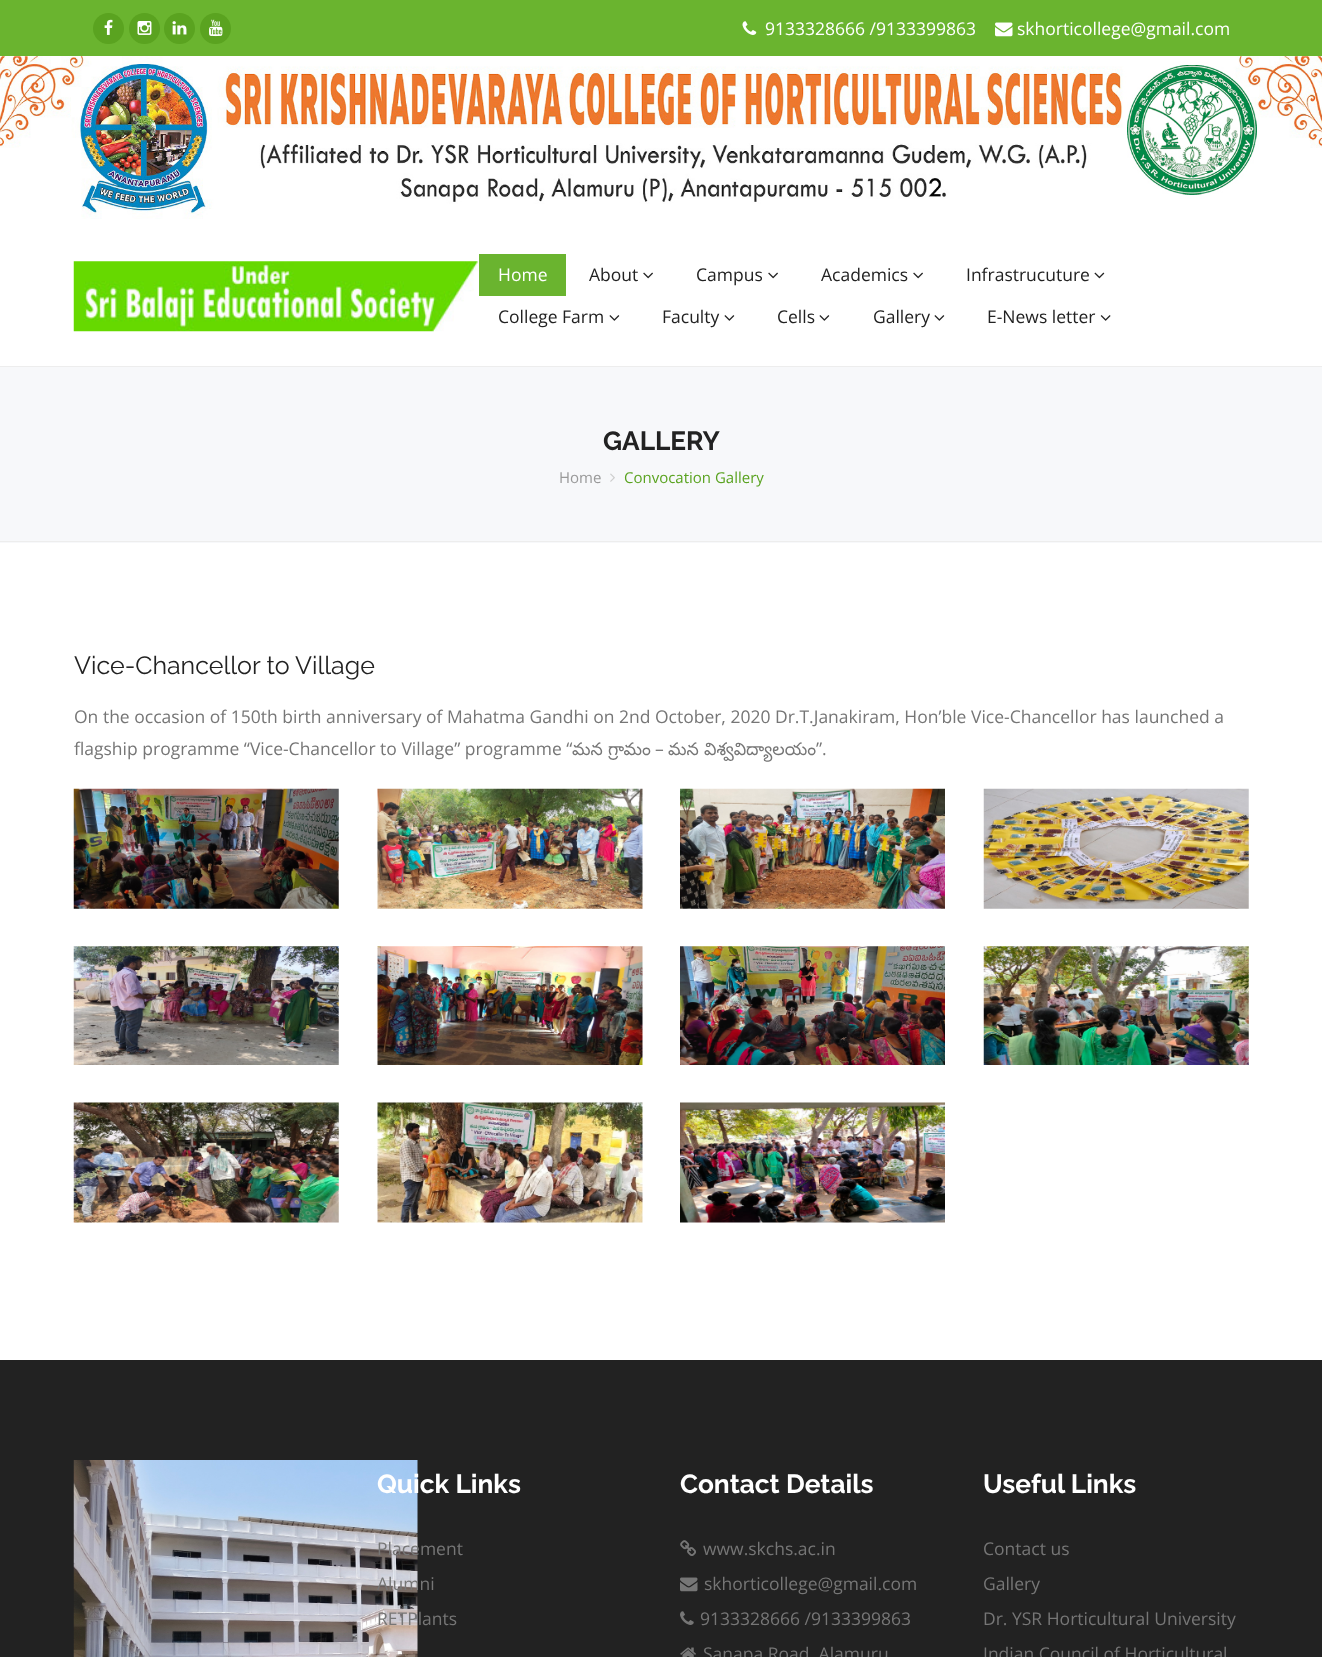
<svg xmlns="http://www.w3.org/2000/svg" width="1322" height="1657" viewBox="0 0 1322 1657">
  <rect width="100%" height="100%" fill="rgb(255,255,255)"/>
  <rect x="0" y="0" width="1322" height="56" fill="rgb(106,180,47)"/>
  <circle cx="108.5" cy="28.5" r="15.5" fill="rgb(90,163,32)"/>
  <image x="104" y="19" width="9" height="16" href="pic1.png"/>
  <circle cx="144.5" cy="28.5" r="15.5" fill="rgb(90,163,32)"/>
  <image x="137" y="21" width="15" height="14" href="pic2.png"/>
  <circle cx="179.5" cy="28.5" r="15.5" fill="rgb(90,163,32)"/>
  <image x="172" y="21" width="15" height="14" href="pic3.png"/>
  <circle cx="215.5" cy="28.5" r="15.5" fill="rgb(90,163,32)"/>
  <image x="209" y="19" width="14" height="18" href="pic4.png"/>
  <image x="742" y="21" width="15" height="14" href="pic5.png"/>
  <text x="765" y="35" font-family="Open Sans" font-size="17.5" fill="rgb(255,255,255)">9133328666 /9133399863</text>
  <image x="995" y="22" width="18" height="15" href="pic6.png"/>
  <text x="1017" y="35" font-family="Open Sans" font-size="17.5" fill="rgb(255,255,255)">skhorticollege@gmail.com</text>
  <image x="0" y="56" width="1322" height="163" href="pic7.png"/>
  <image x="73" y="261" width="406" height="71" href="pic8.png"/>
  <rect x="479" y="254" width="87" height="42" fill="rgb(106,180,47)"/>
  <text x="498" y="281" font-family="Open Sans" font-size="17.5" fill="rgb(255,255,255)">Home</text>
  <text x="589" y="281" font-family="Open Sans" font-size="17.5" fill="rgb(34,34,34)">About</text>
  <image x="643" y="272" width="10" height="7" href="pic9.png"/>
  <text x="696" y="281" font-family="Open Sans" font-size="17.5" fill="rgb(34,34,34)">Campus</text>
  <image x="768" y="272" width="10" height="7" href="pic9.png"/>
  <text x="821" y="281" font-family="Open Sans" font-size="17.5" fill="rgb(34,34,34)">Academics</text>
  <image x="913" y="272" width="10" height="7" href="pic9.png"/>
  <text x="966" y="281" font-family="Open Sans" font-size="17.5" fill="rgb(34,34,34)">Infrastrucuture</text>
  <image x="1094" y="272" width="11" height="7" href="pic10.png"/>
  <text x="498" y="323" font-family="Open Sans" font-size="17.5" fill="rgb(34,34,34)">College Farm</text>
  <image x="609" y="315" width="11" height="6" href="pic11.png"/>
  <text x="662" y="323" font-family="Open Sans" font-size="17.5" fill="rgb(34,34,34)">Faculty</text>
  <image x="724" y="315" width="11" height="6" href="pic11.png"/>
  <text x="777" y="323" font-family="Open Sans" font-size="17.5" fill="rgb(34,34,34)">Cells</text>
  <image x="819" y="315" width="11" height="6" href="pic11.png"/>
  <text x="873" y="323" font-family="Open Sans" font-size="17.5" fill="rgb(34,34,34)">Gallery</text>
  <image x="934" y="315" width="11" height="6" href="pic11.png"/>
  <text x="987" y="323" font-family="Open Sans" font-size="17.5" fill="rgb(34,34,34)">E-News letter</text>
  <image x="1100" y="315" width="11" height="6" href="pic12.png"/>
  <rect x="0" y="367" width="1322" height="176" fill="rgb(247,248,250)"/>
  <rect x="0" y="366" width="1322" height="1" fill="rgb(237,237,237)"/>
  <rect x="0" y="541" width="1322" height="1" fill="rgb(237,237,237)"/>
  <text x="603" y="450" font-family="Raleway" font-size="26.25" font-weight="bold" fill="rgb(34,34,34)">GALLERY</text>
  <text x="559" y="483" font-family="Open Sans" font-size="15" fill="rgb(153,153,153)">Home</text>
  <image x="610" y="473" width="5" height="9" href="pic13.png"/>
  <text x="624" y="483" font-family="Open Sans" font-size="15" fill="rgb(90,163,32)">Convocation Gallery</text>
  <text x="74" y="674" font-family="Raleway" font-size="25" fill="rgb(34,34,34)">Vice-Chancellor to Village</text>
  <g font-family="Open Sans" font-size="17.5" fill="rgb(118,118,118)">
    <text>
      <tspan x="74" y="723">On the occasion of 150th birth anniversary of Mahatma Gandhi on 2nd October, 2020 Dr.T.Janakiram, Hon’ble Vice-Chancellor has launched a</tspan>
      <tspan x="74" y="755">flagship programme “Vice-Chancellor to Village” programme “</tspan>
    </text>
  </g>
  <g font-family="Noto Sans Telugu" font-size="17.5" fill="rgb(118,118,118)">
    <text x="572" y="755">మన</text>
    <text x="608" y="755">గ్రామం</text>
  </g>
  <text x="655" y="755" font-family="Open Sans" font-size="17.5" fill="rgb(118,118,118)">–</text>
  <g font-family="Noto Sans Telugu" font-size="17.5" fill="rgb(118,118,118)">
    <text x="668" y="755">మన</text>
    <text x="704" y="755">విశ్వవిద్యాలయం</text>
  </g>
  <text x="816" y="755" font-family="Open Sans" font-size="17.5" fill="rgb(118,118,118)">”.</text>
  <image x="73" y="788" width="266" height="121" href="pic14.png"/>
  <image x="377" y="788" width="266" height="121" href="pic15.png"/>
  <image x="680" y="788" width="265" height="121" href="pic16.png"/>
  <image x="983" y="788" width="266" height="121" href="pic17.png"/>
  <image x="73" y="946" width="266" height="119" href="pic18.png"/>
  <image x="377" y="946" width="266" height="119" href="pic19.png"/>
  <image x="680" y="946" width="265" height="119" href="pic20.png"/>
  <image x="983" y="946" width="266" height="119" href="pic21.png"/>
  <image x="73" y="1102" width="266" height="121" href="pic22.png"/>
  <image x="377" y="1102" width="266" height="121" href="pic23.png"/>
  <image x="680" y="1102" width="265" height="121" href="pic24.png"/>
  <rect x="0" y="1360" width="1322" height="297" fill="rgb(34,34,34)"/>
  <image x="73" y="1460" width="345" height="197" href="pic25.png"/>
  <text x="377" y="1493" font-family="Raleway" font-size="26.25" font-weight="bold" fill="rgb(255,255,255)">Quick Links</text>
  <g font-family="Open Sans" font-size="17.5" fill="rgb(118,118,118)">
    <text x="377" y="1555">Placement</text>
    <text x="377" y="1590">Alumni</text>
    <text x="377" y="1625">RETPlants</text>
  </g>
  <text x="680" y="1493" font-family="Raleway" font-size="26.25" font-weight="bold" fill="rgb(255,255,255)">Contact Details</text>
  <image x="680" y="1540" width="16" height="16" href="pic26.png"/>
  <text x="703" y="1555" font-family="Open Sans" font-size="17.5" fill="rgb(118,118,118)">www.skchs.ac.in</text>
  <image x="680" y="1577" width="18" height="15" href="pic27.png"/>
  <text x="704" y="1590" font-family="Open Sans" font-size="17.5" fill="rgb(118,118,118)">skhorticollege@gmail.com</text>
  <image x="680" y="1611" width="14" height="14" href="pic28.png"/>
  <text x="700" y="1625" font-family="Open Sans" font-size="17.5" fill="rgb(118,118,118)">9133328666 /9133399863</text>
  <image x="680" y="1647" width="16" height="10" href="pic29.png"/>
  <text x="703" y="1660" font-family="Open Sans" font-size="17.5" fill="rgb(118,118,118)">Sanapa Road, Alamuru</text>
  <text x="983" y="1493" font-family="Raleway" font-size="26.25" font-weight="bold" fill="rgb(255,255,255)">Useful Links</text>
  <g font-family="Open Sans" font-size="17.5" fill="rgb(118,118,118)">
    <text x="983" y="1555">Contact us</text>
    <text x="983" y="1590">Gallery</text>
    <text x="983" y="1625">Dr. YSR Horticultural University</text>
    <text x="983" y="1660">Indian Council of Horticultural</text>
  </g>
</svg>
